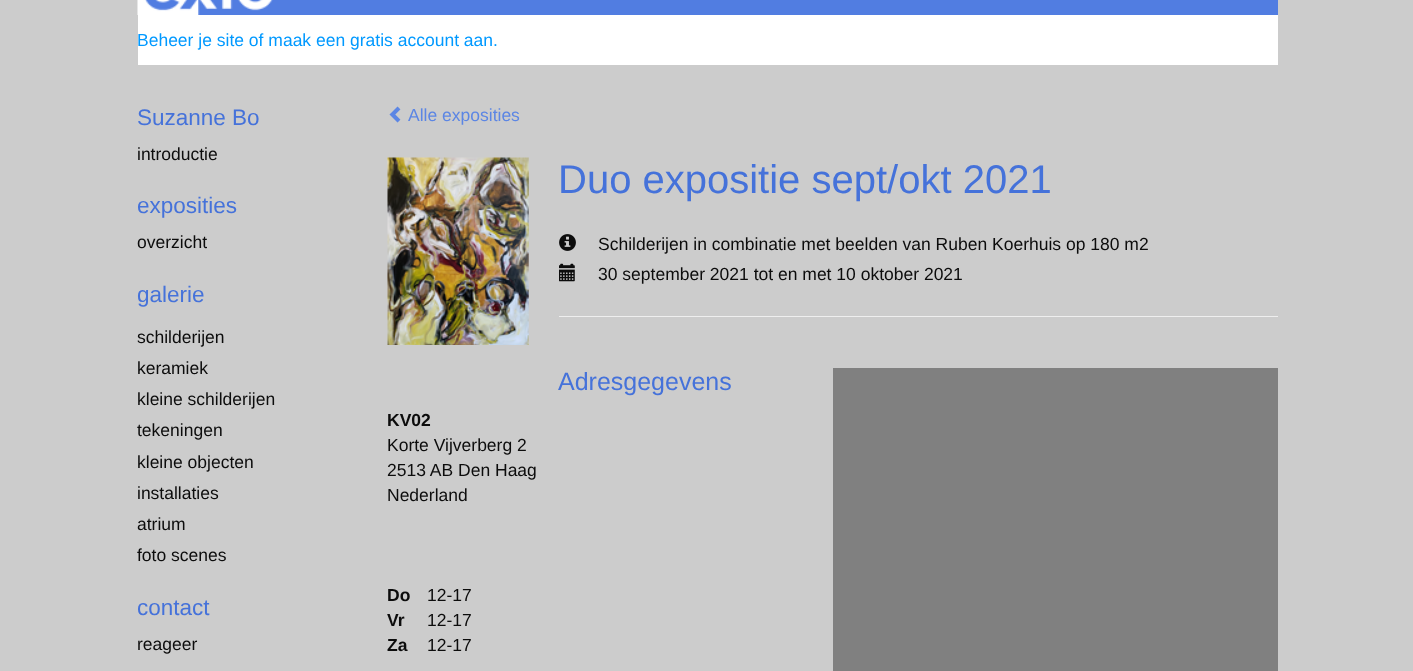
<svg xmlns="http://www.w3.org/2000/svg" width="1413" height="671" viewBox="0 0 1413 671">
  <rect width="100%" height="100%" fill="rgb(204,204,204)"/>
  <rect x="145" y="0" width="1133" height="15" fill="rgb(81,125,225)"/>
  <image x="137" y="0" width="136" height="15" href="pic1.png"/>
  <rect x="138" y="15" width="1140" height="50" fill="rgb(255,255,255)"/>
  <text x="137" y="46" font-family="Liberation Sans" font-size="17.5" fill="rgb(0,153,255)">Beheer je site of maak een gratis account aan.</text>
  <text x="137" y="125" font-family="Liberation Sans" font-size="22.5" fill="rgb(69,114,218)">Suzanne Bo</text>
  <text x="137" y="160" font-family="Liberation Sans" font-size="17.5" fill="rgb(12,12,12)">introductie</text>
  <text x="137" y="213" font-family="Liberation Sans" font-size="22.5" fill="rgb(69,114,218)">exposities</text>
  <text x="137" y="248" font-family="Liberation Sans" font-size="17.5" fill="rgb(12,12,12)">overzicht</text>
  <text x="137" y="302" font-family="Liberation Sans" font-size="22.5" fill="rgb(69,114,218)">galerie</text>
  <g font-family="Liberation Sans" font-size="17.5" fill="rgb(12,12,12)">
    <text>
      <tspan x="137" y="343">schilderijen</tspan>
      <tspan x="137" y="374">keramiek</tspan>
      <tspan x="137" y="405">kleine schilderijen</tspan>
      <tspan x="137" y="436">tekeningen</tspan>
      <tspan x="137" y="468">kleine objecten</tspan>
      <tspan x="137" y="499">installaties</tspan>
      <tspan x="137" y="530">atrium</tspan>
      <tspan x="137" y="561">foto scenes</tspan>
    </text>
  </g>
  <text x="137" y="615" font-family="Liberation Sans" font-size="22.5" fill="rgb(69,114,218)">contact</text>
  <text x="137" y="650" font-family="Liberation Sans" font-size="17.5" fill="rgb(12,12,12)">reageer</text>
  <image x="389" y="106" width="12" height="17" href="pic2.png"/>
  <text x="408" y="121" font-family="Liberation Sans" font-size="17.5" fill="rgb(92,134,228)">Alle exposities</text>
  <image x="387" y="157" width="142" height="188" href="pic3.png"/>
  <text x="558" y="193" font-family="Liberation Sans" font-size="40" fill="rgb(69,114,218)">Duo expositie sept/okt 2021</text>
  <image x="559" y="234" width="17" height="17" href="pic4.png"/>
  <text x="598" y="250" font-family="Liberation Sans" font-size="17.5" fill="rgb(12,12,12)">Schilderijen in combinatie met beelden van Ruben Koerhuis op 180 m2</text>
  <image x="559" y="263" width="16" height="19" href="pic5.png"/>
  <text x="598" y="280" font-family="Liberation Sans" font-size="17.5" fill="rgb(12,12,12)">30 september 2021 tot en met 10 oktober 2021</text>
  <rect x="559" y="316" width="719" height="1" fill="rgb(238,238,238)"/>
  <text x="558" y="390" font-family="Liberation Sans" font-size="25" fill="rgb(69,114,218)">Adresgegevens</text>
  <rect x="833" y="368" width="445" height="303" fill="rgb(128,128,128)"/>
  <text x="387" y="426" font-family="Liberation Sans" font-size="17.5" font-weight="bold" fill="rgb(12,12,12)">KV02</text>
  <g font-family="Liberation Sans" font-size="17.5" fill="rgb(12,12,12)">
    <text>
      <tspan x="387" y="451">Korte Vijverberg 2</tspan>
      <tspan x="387" y="476">2513 AB Den Haag</tspan>
      <tspan x="387" y="501">Nederland</tspan>
    </text>
  </g>
  <text x="387" y="601" font-family="Liberation Sans" font-size="17.5" font-weight="bold" fill="rgb(12,12,12)">Do</text>
  <text x="427" y="601" font-family="Liberation Sans" font-size="17.5" fill="rgb(12,12,12)">12-17</text>
  <text x="387" y="626" font-family="Liberation Sans" font-size="17.5" font-weight="bold" fill="rgb(12,12,12)">Vr</text>
  <text x="427" y="626" font-family="Liberation Sans" font-size="17.5" fill="rgb(12,12,12)">12-17</text>
  <text x="387" y="651" font-family="Liberation Sans" font-size="17.5" font-weight="bold" fill="rgb(12,12,12)">Za</text>
  <text x="427" y="651" font-family="Liberation Sans" font-size="17.5" fill="rgb(12,12,12)">12-17</text>
</svg>
